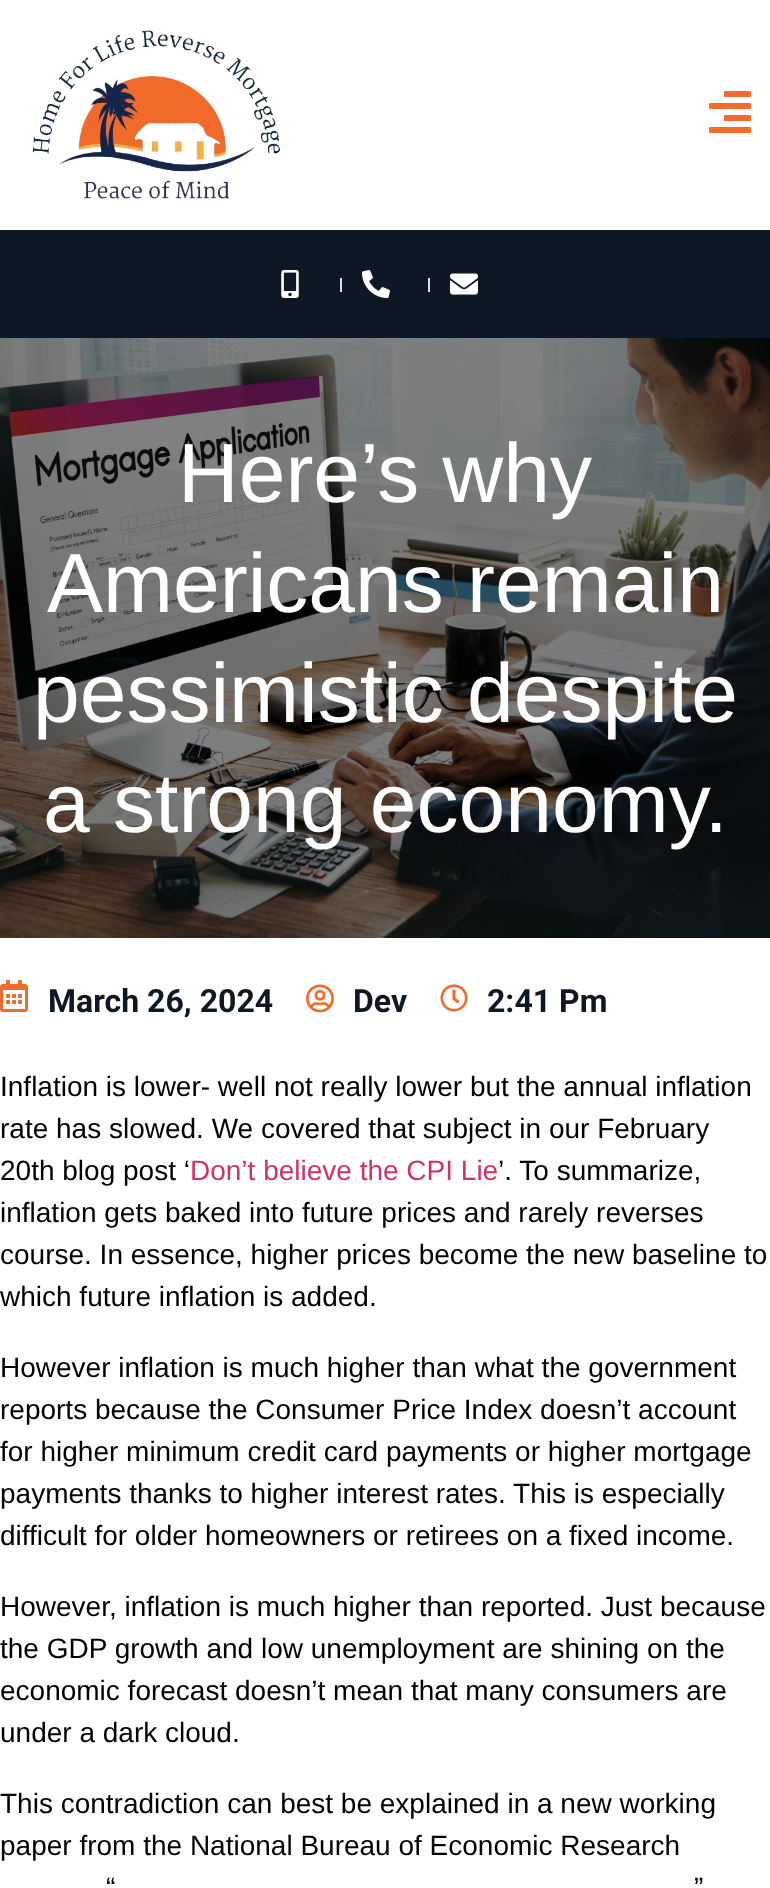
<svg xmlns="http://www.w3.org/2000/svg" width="770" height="1888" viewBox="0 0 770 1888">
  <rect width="100%" height="100%" fill="rgb(255,255,255)"/>
  <image x="32" y="30" width="249" height="169" href="pic1.png"/>
  <image x="709" y="91" width="42" height="42" href="pic2.png"/>
  <rect x="0" y="230" width="770" height="108" fill="rgb(14,24,37)"/>
  <image x="281" y="270" width="18" height="28" href="pic3.png"/>
  <rect x="340" y="278" width="2" height="14" fill="rgb(221,221,221)"/>
  <image x="362" y="270" width="28" height="28" href="pic4.png"/>
  <rect x="428" y="278" width="2" height="14" fill="rgb(221,221,221)"/>
  <image x="450" y="273" width="28" height="22" href="pic5.png"/>
  <image x="0" y="338" width="770" height="600" href="pic6.png"/>
  <g font-family="Liberation Sans" font-size="84" fill="rgb(255,255,255)">
    <text x="178" y="502">Here’s why</text>
    <text x="47" y="612">Americans remain</text>
    <text x="33" y="722">pessimistic despite</text>
    <text x="43" y="832">a strong economy.</text>
  </g>
  <image x="0" y="980" width="28" height="32" href="pic7.png"/>
  <text x="48" y="1012" font-family="Roboto" font-size="32" font-weight="bold" fill="rgb(14,24,37)">March 26, 2024</text>
  <image x="306" y="984" width="28" height="28" href="pic8.png"/>
  <text x="353" y="1012" font-family="Roboto" font-size="32" font-weight="bold" fill="rgb(14,24,37)">Dev</text>
  <image x="440" y="984" width="28" height="28" href="pic9.png"/>
  <text x="487" y="1012" font-family="Roboto" font-size="32" font-weight="bold" fill="rgb(14,24,37)">2:41 Pm</text>
  <g font-family="Liberation Sans" font-size="28" fill="rgb(0,0,0)">
    <text>
      <tspan x="0" y="1096">Inflation is lower- well not really lower but the annual inflation</tspan>
      <tspan x="0" y="1138">rate has slowed. We covered that subject in our February</tspan>
      <tspan x="0" y="1180">20th blog post ‘</tspan>
    </text>
  </g>
  <text x="190" y="1180" font-family="Liberation Sans" font-size="28" fill="rgb(204,51,102)">Don’t believe the CPI Lie</text>
  <g font-family="Liberation Sans" font-size="28" fill="rgb(0,0,0)">
    <text x="498" y="1180">’. To summarize,</text>
    <text>
      <tspan x="0" y="1222">inflation gets baked into future prices and rarely reverses</tspan>
      <tspan x="0" y="1264">course. In essence, higher prices become the new baseline to</tspan>
      <tspan x="0" y="1306">which future inflation is added.</tspan>
    </text>
    <text>
      <tspan x="0" y="1377">However inflation is much higher than what the government</tspan>
      <tspan x="0" y="1419">reports because the Consumer Price Index doesn’t account</tspan>
      <tspan x="0" y="1461">for higher minimum credit card payments or higher mortgage</tspan>
      <tspan x="0" y="1503">payments thanks to higher interest rates. This is especially</tspan>
      <tspan x="0" y="1545">difficult for older homeowners or retirees on a fixed income.</tspan>
    </text>
    <text>
      <tspan x="0" y="1616">However, inflation is much higher than reported. Just because</tspan>
      <tspan x="0" y="1658">the GDP growth and low unemployment are shining on the</tspan>
      <tspan x="0" y="1700">economic forecast doesn’t mean that many consumers are</tspan>
      <tspan x="0" y="1742">under a dark cloud.</tspan>
    </text>
    <text>
      <tspan x="0" y="1813">This contradiction can best be explained in a new working</tspan>
      <tspan x="0" y="1855">paper from the National Bureau of Economic Research</tspan>
    </text>
    <text x="106" y="1897">“</text>
    <text x="694" y="1897">”</text>
  </g>
</svg>
